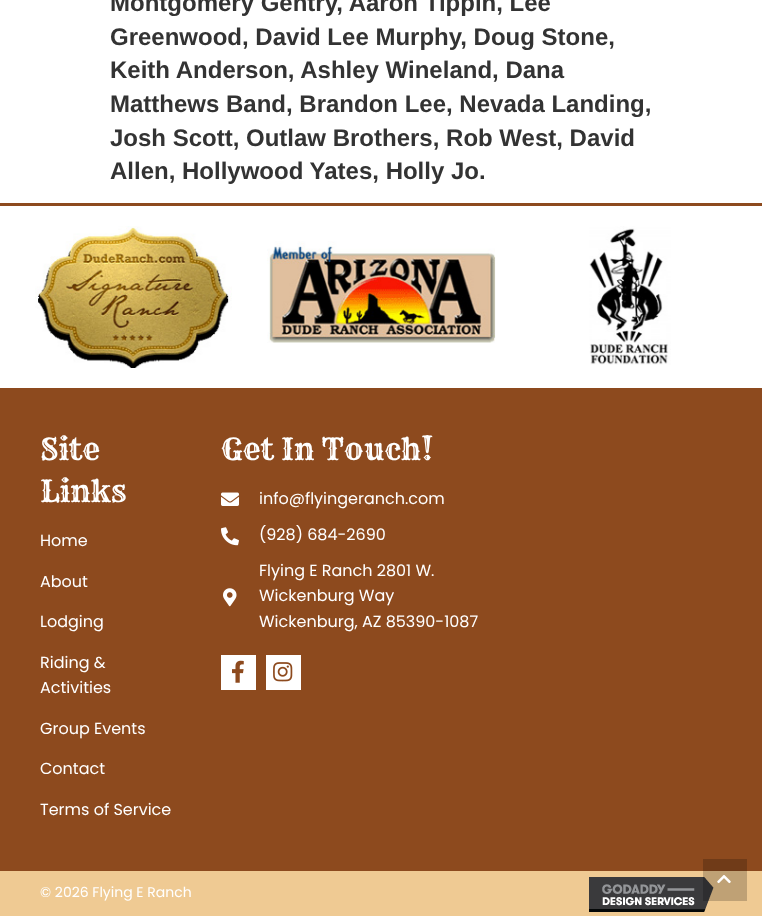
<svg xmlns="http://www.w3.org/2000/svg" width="762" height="916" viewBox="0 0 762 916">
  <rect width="100%" height="100%" fill="rgb(255,255,255)"/>
  <g font-family="Liberation Sans" font-size="24" font-weight="bold" fill="rgb(51,51,51)">
    <text>
      <tspan x="110" y="11">Montgomery Gentry, Aaron Tippin, Lee</tspan>
      <tspan x="110" y="45">Greenwood, David Lee Murphy, Doug Stone,</tspan>
      <tspan x="110" y="78">Keith Anderson, Ashley Wineland, Dana</tspan>
      <tspan x="110" y="112">Matthews Band, Brandon Lee, Nevada Landing,</tspan>
      <tspan x="110" y="146">Josh Scott, Outlaw Brothers, Rob West, David</tspan>
      <tspan x="110" y="179">Allen, Hollywood Yates, Holly Jo.</tspan>
    </text>
  </g>
  <rect x="0" y="203" width="762" height="3" fill="rgb(141,74,30)"/>
  <image x="35" y="226" width="197" height="142" href="pic1.png"/>
  <image x="267" y="241" width="229" height="102" href="pic2.png"/>
  <image x="589" y="226" width="82" height="139" href="pic3.png"/>
  <rect x="0" y="388" width="762" height="483" fill="rgb(141,74,30)"/>
  <g font-family="Rye" font-size="30" fill="rgb(255,255,255)">
    <text>
      <tspan x="40" y="460">Site</tspan>
      <tspan x="40" y="502">Links</tspan>
    </text>
  </g>
  <g font-family="Poppins" font-size="16" fill="rgb(255,255,255)">
    <text x="40" y="546">Home</text>
    <text x="40" y="587">About</text>
    <text x="40" y="627">Lodging</text>
    <text>
      <tspan x="40" y="668">Riding &amp;</tspan>
      <tspan x="40" y="693">Activities</tspan>
    </text>
    <text x="40" y="734">Group Events</text>
    <text x="40" y="774">Contact</text>
    <text x="40" y="815">Terms of Service</text>
  </g>
  <text x="221" y="460" font-family="Rye" font-size="30" fill="rgb(255,255,255)">Get In Touch!</text>
  <image x="221" y="492" width="18" height="14" href="pic4.png"/>
  <text x="259" y="504" font-family="Poppins" font-size="16" fill="rgb(255,255,255)">info@flyingeranch.com</text>
  <image x="221" y="527" width="18" height="19" href="pic5.png"/>
  <text x="259" y="540" font-family="Poppins" font-size="16" fill="rgb(255,255,255)">(928) 684-2690</text>
  <image x="223" y="588" width="14" height="19" href="pic6.png"/>
  <g font-family="Poppins" font-size="16" fill="rgb(255,255,255)">
    <text>
      <tspan x="259" y="576">Flying E Ranch 2801 W.</tspan>
      <tspan x="259" y="601">Wickenburg Way</tspan>
      <tspan x="259" y="627">Wickenburg, AZ 85390-1087</tspan>
    </text>
  </g>
  <rect x="221" y="655" width="35" height="35" fill="rgb(255,255,255)"/>
  <image x="232" y="660" width="12" height="23" href="pic7.png"/>
  <rect x="266" y="655" width="35" height="35" fill="rgb(255,255,255)"/>
  <image x="273" y="662" width="20" height="20" href="pic8.png"/>
  <rect x="0" y="871" width="762" height="45" fill="rgb(239,202,147)"/>
  <text x="40" y="897" font-family="Poppins" font-size="14" fill="rgb(255,255,255)">© 2026 Flying E Ranch</text>
  <image x="589" y="877" width="125" height="35" href="pic9.png"/>
  <rect x="703" y="859" width="44" height="42" fill="rgba(0,0,0,0.2)"/>
  <image x="717" y="875" width="14" height="9" href="pic10.png"/>
</svg>
